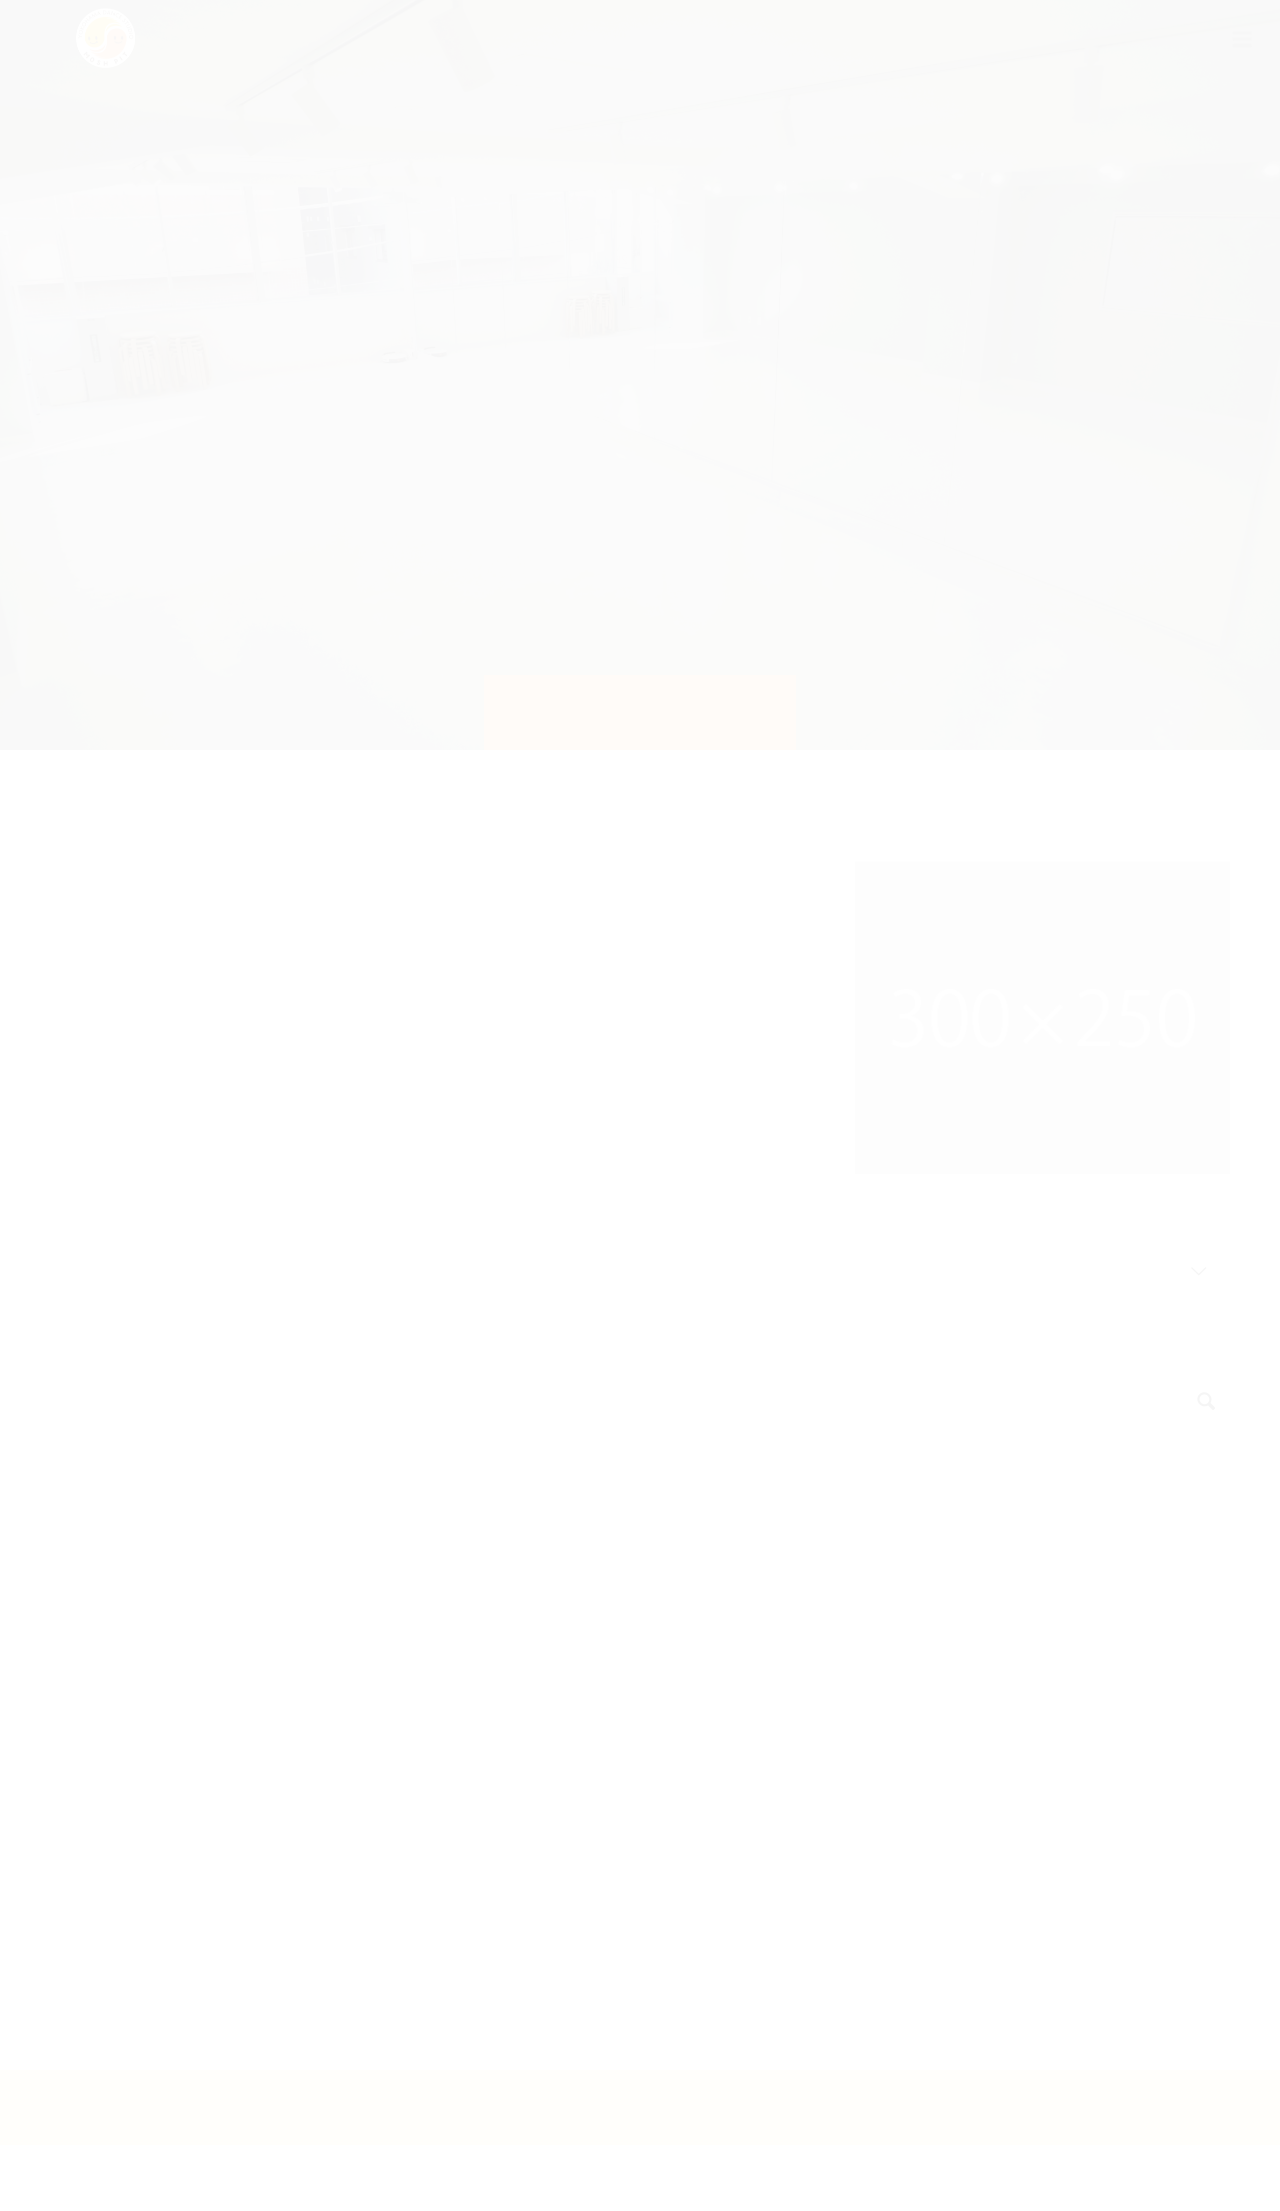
<svg xmlns="http://www.w3.org/2000/svg" width="1280" height="2211" viewBox="0 0 1280 2211">
  <rect width="100%" height="100%" fill="rgb(255,255,255)"/>
  <image x="0" y="0" width="1280" height="750" href="pic1.png"/>
  <rect x="484" y="675" width="312" height="75" fill="rgb(255,251,248)"/>
  <image x="855" y="861" width="375" height="313" href="pic2.png"/>
  <image x="1191" y="1267" width="16" height="9" href="pic3.png"/>
  <image x="1197" y="1392" width="19" height="18" href="pic4.png"/>
  <image x="76" y="8" width="59" height="61" href="pic5.png"/>
  <image x="1232" y="31" width="20" height="17" href="pic6.png"/>
  <rect x="0" y="2070" width="1280" height="75" fill="rgb(255,254,251)"/>
</svg>
